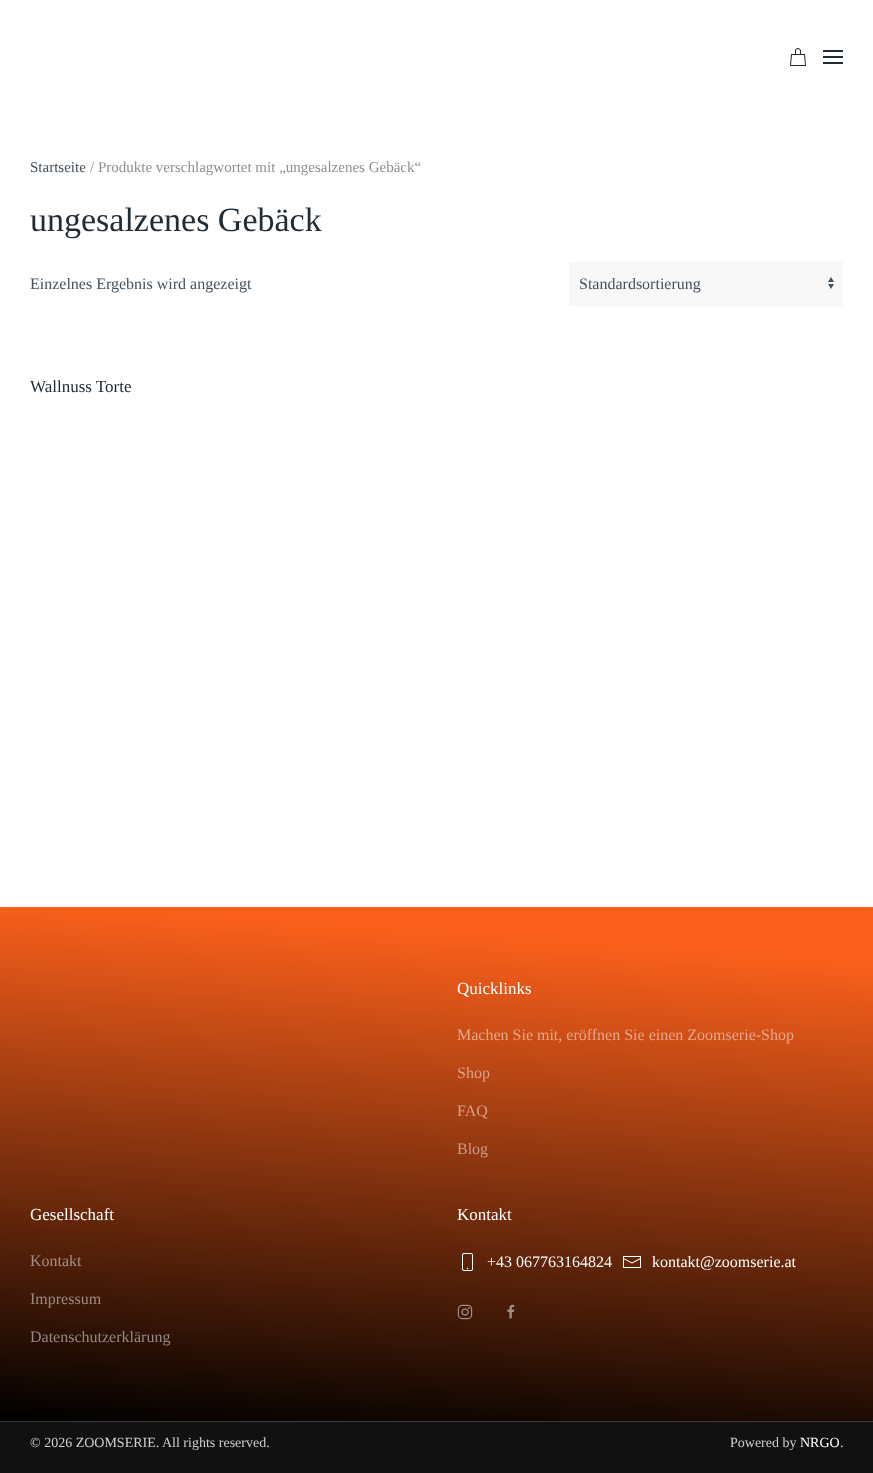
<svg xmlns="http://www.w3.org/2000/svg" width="873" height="1473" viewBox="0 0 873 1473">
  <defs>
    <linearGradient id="g1" gradientUnits="userSpaceOnUse" x1="457" y1="878" x2="416" y2="1450"><stop offset="0.1" stop-color="rgb(249,95,27)"/><stop offset="1" stop-color="rgb(0,0,0)"/></linearGradient>
  </defs>
  <rect width="100%" height="100%" fill="rgb(255,255,255)"/>
  <image x="790" y="48" width="16" height="18" href="pic1.png"/>
  <rect x="823" y="50" width="20" height="2" fill="rgb(33,44,52)"/>
  <rect x="823" y="56" width="20" height="2" fill="rgb(33,44,52)"/>
  <rect x="823" y="62" width="20" height="2" fill="rgb(33,44,52)"/>
  <text x="30" y="172" font-family="Liberation Serif" font-size="15" fill="rgb(69,81,91)">Startseite</text>
  <text x="90" y="172" font-family="Liberation Serif" font-size="15" fill="rgb(141,144,144)">/ Produkte verschlagwortet mit „ungesalzenes Gebäck“</text>
  <text x="30" y="231" font-family="Liberation Serif" font-size="34" fill="rgb(33,44,52)">ungesalzenes Gebäck</text>
  <text x="30" y="289" font-family="Liberation Serif" font-size="16" fill="rgb(69,81,91)">Einzelnes Ergebnis wird angezeigt</text>
  <rect x="569" y="261" width="274" height="46" fill="rgb(248,248,248)"/>
  <image x="828" y="277" width="6" height="12" href="pic2.png"/>
  <text x="579" y="289" font-family="Liberation Serif" font-size="16" fill="rgb(69,81,91)">Standardsortierung</text>
  <text x="30" y="392" font-family="Liberation Serif" font-size="17" fill="rgb(33,44,52)">Wallnuss Torte</text>
  <rect x="0" y="907" width="873" height="514" fill="url(#g1)"/>
  <text x="457" y="994" font-family="Liberation Serif" font-size="17" fill="rgb(255,255,255)">Quicklinks</text>
  <text x="457" y="1040" font-family="Liberation Serif" font-size="16" fill="rgb(231,167,139)">Machen Sie mit, eröffnen Sie einen Zoomserie-Shop</text>
  <text x="457" y="1078" font-family="Liberation Serif" font-size="16" fill="rgb(219,162,137)">Shop</text>
  <text x="457" y="1116" font-family="Liberation Serif" font-size="16" fill="rgb(210,159,137)">FAQ</text>
  <text x="457" y="1154" font-family="Liberation Serif" font-size="16" fill="rgb(201,155,136)">Blog</text>
  <text x="30" y="1220" font-family="Liberation Serif" font-size="17" fill="rgb(255,255,255)">Gesellschaft</text>
  <text x="30" y="1266" font-family="Liberation Serif" font-size="16" fill="rgb(167,142,132)">Kontakt</text>
  <text x="30" y="1304" font-family="Liberation Serif" font-size="16" fill="rgb(158,139,131)">Impressum</text>
  <text x="30" y="1342" font-family="Liberation Serif" font-size="16" fill="rgb(149,136,130)">Datenschutzerklärung</text>
  <text x="457" y="1220" font-family="Liberation Serif" font-size="17" fill="rgb(255,255,255)">Kontakt</text>
  <image x="462" y="1253" width="11" height="18" href="pic3.png"/>
  <text x="487" y="1267" font-family="Liberation Serif" font-size="16" fill="rgb(255,255,255)">+43 067763164824</text>
  <image x="623" y="1256" width="18" height="12" href="pic4.png"/>
  <text x="652" y="1267" font-family="Liberation Serif" font-size="16" fill="rgb(255,255,255)">kontakt@zoomserie.at</text>
  <image x="457" y="1304" width="16" height="16" href="pic5.png"/>
  <image x="507" y="1304" width="8" height="15" href="pic6.png"/>
  <rect x="0" y="1422" width="873" height="51" fill="rgb(17,17,17)"/>
  <rect x="0" y="1421" width="873" height="1" fill="rgb(60,59,59)"/>
  <g font-family="Liberation Serif" font-size="14" fill="rgb(207,207,207)">
    <text x="30" y="1447">© 2026 ZOOMSERIE. All rights reserved.</text>
    <text x="730" y="1447">Powered by</text>
  </g>
  <text x="800" y="1447" font-family="Liberation Serif" font-size="14" fill="rgb(255,255,255)">NRGO</text>
  <text x="840" y="1447" font-family="Liberation Serif" font-size="14" fill="rgb(207,207,207)">.</text>
</svg>
